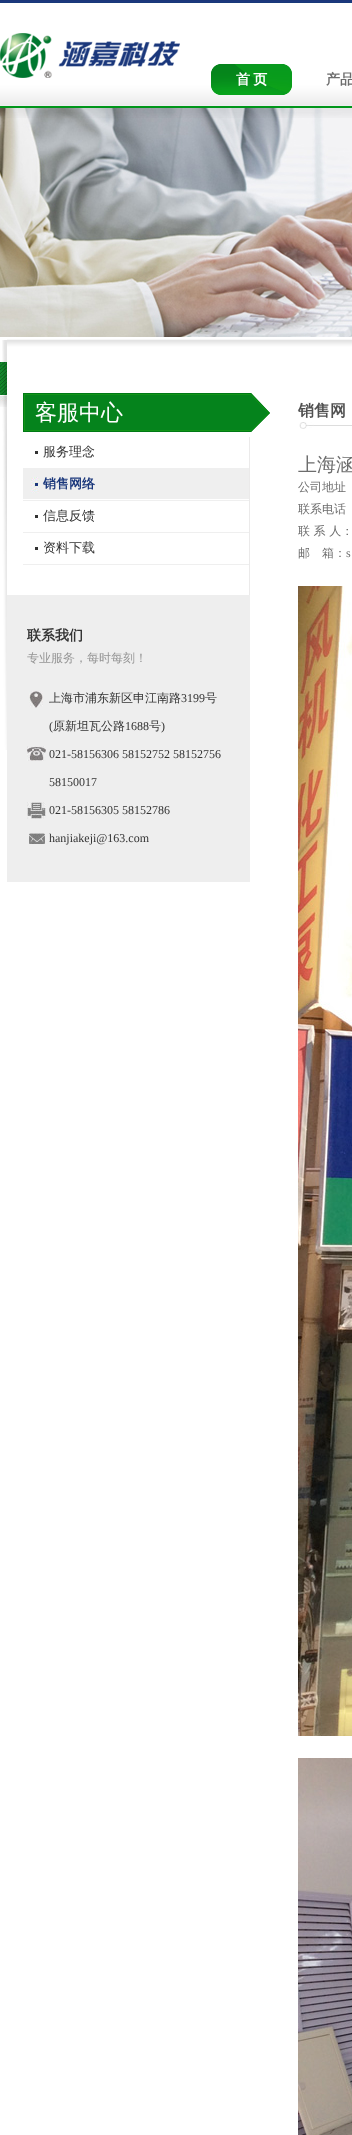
<svg xmlns="http://www.w3.org/2000/svg" width="352" height="2135" viewBox="0 0 352 2135">
  <rect width="100%" height="100%" fill="rgb(255,255,255)"/>
  <image x="0" y="0" width="352" height="108" href="pic1.png"/>
  <image x="0" y="33" width="180" height="45" href="pic2.png"/>
  <image x="211" y="64" width="81" height="31" href="pic3.png"/>
  <text x="236" y="84" word-spacing="-1" font-family="WenQuanYi Zen Hei" font-size="14" font-weight="bold" fill="rgb(255,255,255)">首 页</text>
  <text x="326" y="84" font-family="WenQuanYi Zen Hei" font-size="14" font-weight="bold" fill="rgb(109,109,109)">产品</text>
  <image x="0" y="108" width="352" height="229" href="pic5.png"/>
  <image x="0" y="108" width="352" height="10" href="pic4.png"/>
  <image x="0" y="362" width="7" height="45" href="pic6.png"/>
  <image x="2" y="340" width="5" height="410" href="pic7.png"/>
  <image x="7" y="339" width="345" height="68" href="pic8.png"/>
  <image x="23" y="393" width="247" height="39" href="pic9.png"/>
  <text x="35" y="420" font-family="WenQuanYi Zen Hei" font-size="22" font-weight="500" fill="rgb(255,255,255)">客服中心</text>
  <rect x="249" y="437" width="1" height="158" fill="rgb(235,234,234)"/>
  <rect x="35" y="451" width="3" height="3" fill="rgb(51,51,51)"/>
  <rect x="23" y="468" width="226" height="1" fill="rgb(239,239,239)"/>
  <text x="43" y="456" font-family="WenQuanYi Zen Hei" font-size="13" font-weight="500" fill="rgb(51,51,51)">服务理念</text>
  <image x="23" y="469" width="226" height="30" href="pic10.png"/>
  <rect x="23" y="500" width="226" height="1" fill="rgb(239,239,239)"/>
  <text x="43" y="488" font-family="WenQuanYi Zen Hei" font-size="13" font-weight="bold" fill="rgb(26,55,123)">销售网络</text>
  <rect x="35" y="515" width="3" height="3" fill="rgb(51,51,51)"/>
  <rect x="23" y="532" width="226" height="1" fill="rgb(239,239,239)"/>
  <text x="43" y="520" font-family="WenQuanYi Zen Hei" font-size="13" font-weight="500" fill="rgb(51,51,51)">信息反馈</text>
  <rect x="35" y="547" width="3" height="3" fill="rgb(51,51,51)"/>
  <rect x="23" y="564" width="226" height="1" fill="rgb(239,239,239)"/>
  <text x="43" y="552" font-family="WenQuanYi Zen Hei" font-size="13" font-weight="500" fill="rgb(51,51,51)">资料下载</text>
  <rect x="7" y="595" width="243" height="287" fill="rgb(238,238,238)"/>
  <text x="27" y="640" font-family="WenQuanYi Zen Hei" font-size="14" font-weight="bold" fill="rgb(51,51,51)">联系我们</text>
  <text x="27" y="662" font-family="WenQuanYi Zen Hei" font-size="12" font-weight="500" fill="rgb(149,149,149)">专业服务，每时每刻！</text>
  <image x="29" y="691" width="14" height="17" href="pic11.png"/>
  <text x="49" y="702" font-family="WenQuanYi Zen Hei" font-size="12" font-weight="500" fill="rgb(51,51,51)">上海市浦东新区申江南路</text>
  <text x="181" y="702" font-family="Liberation Serif" font-size="12" fill="rgb(51,51,51)">3199</text>
  <text x="205" y="702" font-family="WenQuanYi Zen Hei" font-size="12" font-weight="500" fill="rgb(51,51,51)">号</text>
  <text x="49" y="730" font-family="Liberation Serif" font-size="12" fill="rgb(51,51,51)">(</text>
  <text x="53" y="730" font-family="WenQuanYi Zen Hei" font-size="12" font-weight="500" fill="rgb(51,51,51)">原新坦瓦公路</text>
  <text x="125" y="730" font-family="Liberation Serif" font-size="12" fill="rgb(51,51,51)">1688</text>
  <text x="149" y="730" font-family="WenQuanYi Zen Hei" font-size="12" font-weight="500" fill="rgb(51,51,51)">号</text>
  <text x="161" y="730" font-family="Liberation Serif" font-size="12" fill="rgb(51,51,51)">)</text>
  <image x="27" y="746" width="19" height="15" href="pic12.png"/>
  <g font-family="Liberation Serif" font-size="12" fill="rgb(51,51,51)">
    <text x="49" y="758">021-58156306 58152752 58152756</text>
    <text x="49" y="786">58150017</text>
  </g>
  <image x="27" y="802" width="19" height="17" href="pic13.png"/>
  <text x="49" y="814" font-family="Liberation Serif" font-size="12" fill="rgb(51,51,51)">021-58156305 58152786</text>
  <image x="29" y="833" width="16" height="11" href="pic14.png"/>
  <text x="49" y="842" font-family="Liberation Serif" font-size="12" fill="rgb(51,51,51)">hanjiakeji@163.com</text>
  <image x="299" y="422" width="53" height="7" href="pic15.png"/>
  <text x="298" y="416" font-family="WenQuanYi Zen Hei" font-size="16" font-weight="bold" fill="rgb(80,80,80)">销售网</text>
  <text x="298" y="471" font-family="WenQuanYi Zen Hei" font-size="19" font-weight="500" fill="rgb(109,109,109)">上海涵</text>
  <g font-family="WenQuanYi Zen Hei" font-size="12" font-weight="500" fill="rgb(109,109,109)">
    <text>
      <tspan x="298" y="491">公司地址</tspan>
      <tspan x="298" y="513">联系电话</tspan>
      <tspan x="298" y="535">联 系 人：</tspan>
      <tspan x="298" y="557">邮</tspan>
    </text>
    <text x="322" y="557">箱：</text>
  </g>
  <text x="346" y="557" font-family="Liberation Serif" font-size="12" fill="rgb(109,109,109)">s</text>
  <image x="298" y="586" width="54" height="1150" href="pic16.png"/>
  <image x="298" y="1758" width="54" height="377" href="pic17.png"/>
</svg>
